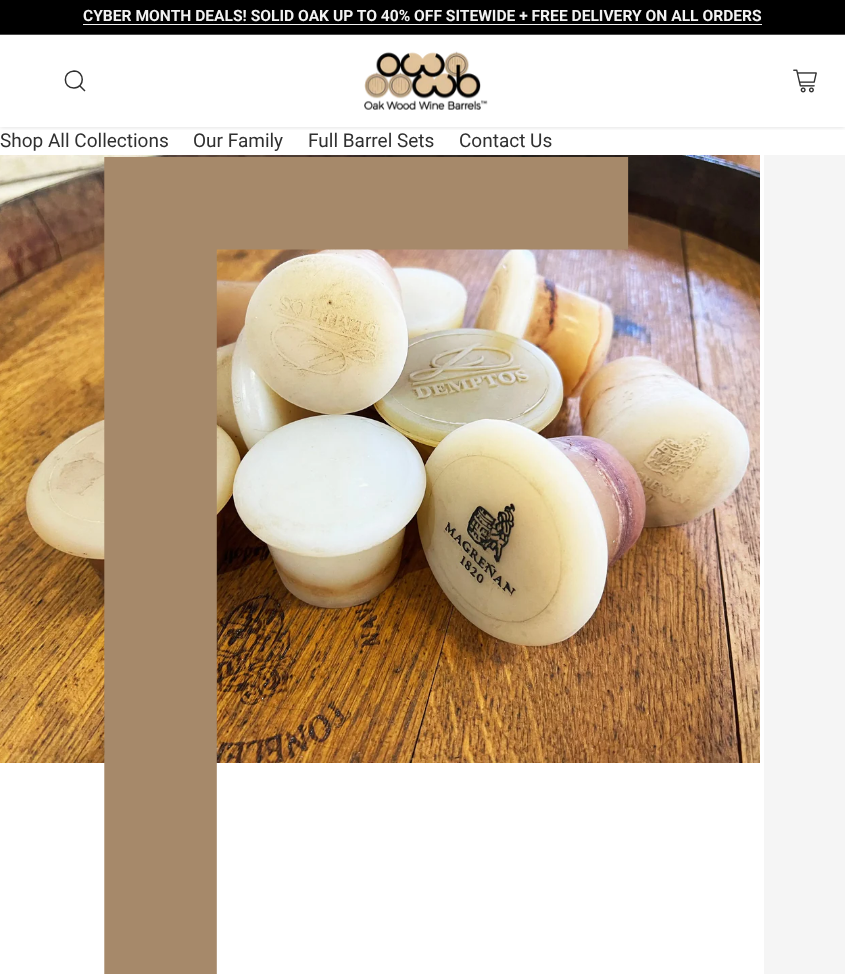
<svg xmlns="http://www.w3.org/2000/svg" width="845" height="974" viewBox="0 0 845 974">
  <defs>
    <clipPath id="clip1"><rect x="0" y="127" width="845" height="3"/></clipPath>
  </defs>
  <rect width="100%" height="100%" fill="rgb(255,255,255)"/>
  <g clip-path="url(#clip1)">
    <rect x="0" y="35" width="845" height="92" fill="rgba(0,0,0,0.15)" filter="blur(2.5px)"/>
  </g>
  <rect x="0" y="0" width="845" height="34" fill="rgb(0,0,0)"/>
  <rect x="0" y="34" width="845" height="1" fill="rgb(73,73,73)"/>
  <text x="83" y="21" font-family="Roboto" font-size="15.6" font-weight="bold" fill="rgb(242,242,242)">CYBER MONTH DEALS! SOLID OAK UP TO 40% OFF SITEWIDE + FREE DELIVERY ON ALL ORDERS</text>
  <rect x="83" y="24" width="679" height="1" fill="rgb(242,242,242)"/>
  <path d="M74 88C85 88 85 71 74 71C62.5 71.5 62.5 88 74 88Z" fill="none" stroke="rgb(48,48,48)" stroke-width="1.5" stroke-linecap="round"/>
  <path d="M80 86L85 91" fill="none" stroke="rgb(48,48,48)" stroke-width="1.5"/>
  <image x="364" y="51" width="124" height="59" href="pic1.png"/>
  <image x="793" y="69" width="24" height="24" href="pic2.png"/>
  <g font-family="Roboto" font-size="19" fill="rgb(48,48,48)">
    <text x="0" y="147">Shop All Collections</text>
    <text x="193" y="147">Our Family</text>
    <text x="308" y="147">Full Barrel Sets</text>
    <text x="459" y="147">Contact Us</text>
  </g>
  <image x="0" y="155" width="760" height="608" href="pic3.png"/>
  <rect x="764" y="155" width="81" height="819" fill="rgb(245,245,245)"/>
  <text x="0" y="1010" font-family="Roboto" font-size="1200" fill="rgb(166,137,106)">Γ</text>
</svg>
